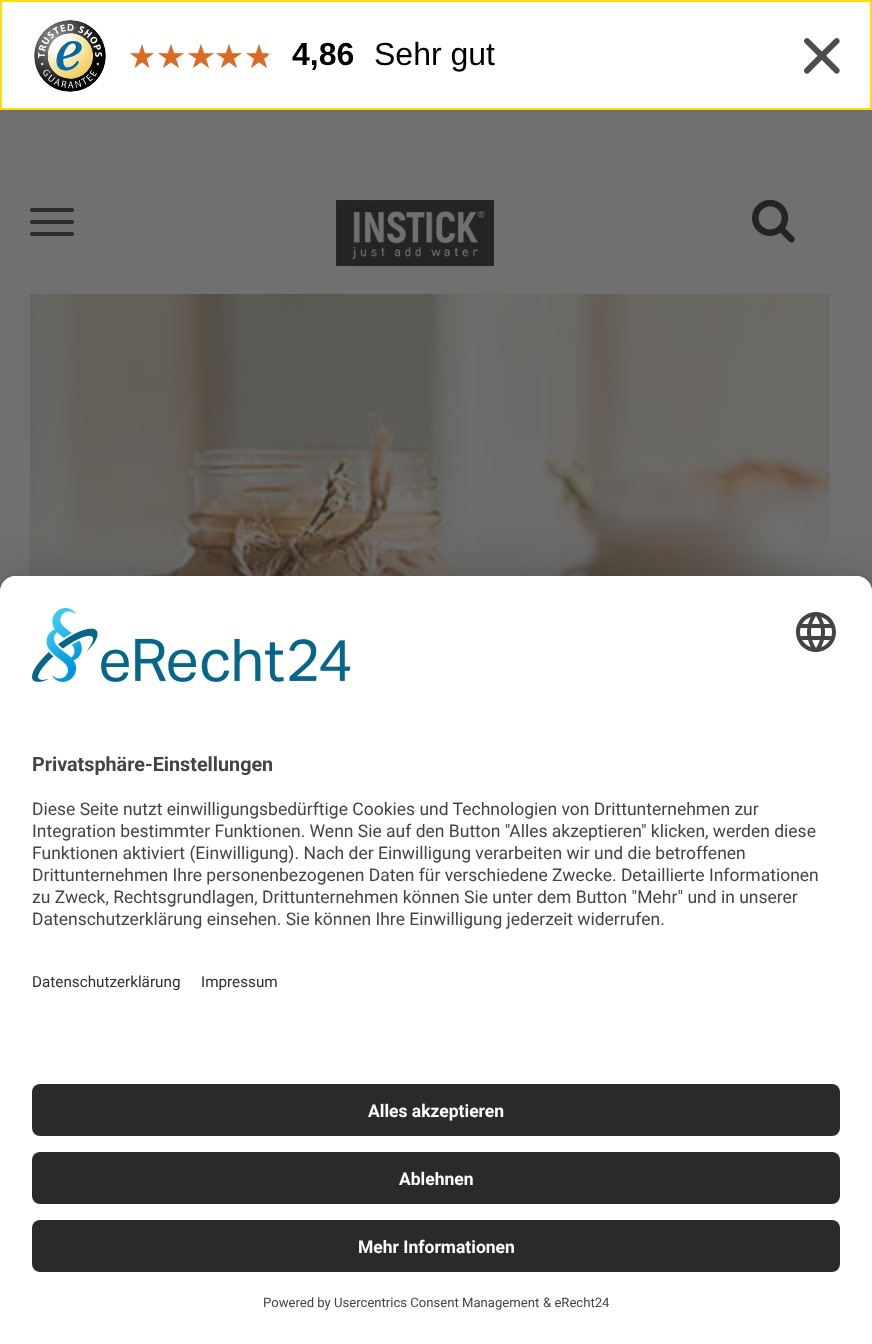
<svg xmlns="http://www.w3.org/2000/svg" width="872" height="1344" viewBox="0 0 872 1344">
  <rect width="100%" height="100%" fill="rgb(112,112,112)"/>
  <rect x="1" y="1" width="870" height="108" fill="rgb(255,255,255)" stroke="rgb(255,220,15)" stroke-width="2"/>
  <image x="34" y="20" width="72" height="72" href="pic1.png"/>
  <image x="130" y="44" width="24" height="24" href="pic2.png"/>
  <image x="158" y="44" width="26" height="24" href="pic3.png"/>
  <image x="188" y="44" width="26" height="24" href="pic3.png"/>
  <image x="216" y="44" width="26" height="24" href="pic3.png"/>
  <image x="246" y="44" width="26" height="24" href="pic4.png"/>
  <image x="130" y="44" width="24" height="24" href="pic5.png"/>
  <image x="158" y="44" width="26" height="24" href="pic6.png"/>
  <image x="188" y="44" width="26" height="24" href="pic6.png"/>
  <image x="216" y="44" width="26" height="24" href="pic6.png"/>
  <image x="246" y="44" width="22" height="24" href="pic7.png"/>
  <text x="292" y="65" font-family="Liberation Sans" font-size="32" font-weight="bold" fill="rgb(0,0,0)">4,86</text>
  <text x="374" y="65" font-family="Liberation Sans" font-size="32" fill="rgb(0,0,0)">Sehr gut</text>
  <image x="804" y="38" width="36" height="36" href="pic8.png"/>
  <rect x="30" y="208" width="44" height="4" rx="2" fill="rgb(44,44,44)"/>
  <rect x="30" y="220" width="44" height="4" rx="2" fill="rgb(44,44,44)"/>
  <rect x="30" y="232" width="44" height="4" rx="2" fill="rgb(44,44,44)"/>
  <image x="336" y="200" width="158" height="66" href="pic9.png"/>
  <image x="752" y="199" width="43" height="44" href="pic10.png"/>
  <image x="30" y="294" width="800" height="282" href="pic11.png"/>
  <rect x="0" y="616" width="872" height="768" rx="16" fill="rgba(0,0,0,0.3)" filter="blur(28px)"/>
  <rect x="0" y="586" width="872" height="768" rx="16" fill="rgba(0,0,0,0.22)" filter="blur(26px)"/>
  <path d="M16 576H856C865 576 872 583 872 592V1344H0V592C0 583 7 576 16 576Z" fill="rgb(255,255,255)"/>
  <path d="M16 576H856C865 576 872 583 872 592V1060H0V592C0 583 7 576 16 576Z" fill="rgb(255,255,255)"/>
  <image x="32" y="608" width="319" height="74" href="pic12.png"/>
  <image x="796" y="612" width="40" height="40" href="pic13.png"/>
  <text x="32" y="771" font-family="Roboto" font-size="19.75" font-weight="bold" fill="rgb(68,68,68)">Privatsphäre-Einstellungen</text>
  <g font-family="Roboto" font-size="17.5" fill="rgb(68,68,68)">
    <text>
      <tspan x="32" y="815">Diese Seite nutzt einwilligungsbedürftige Cookies und Technologien von Drittunternehmen zur</tspan>
      <tspan x="32" y="837">Integration bestimmter Funktionen. Wenn Sie auf den Button "Alles akzeptieren" klicken, werden diese</tspan>
      <tspan x="32" y="859">Funktionen aktiviert (Einwilligung). Nach der Einwilligung verarbeiten wir und die betroffenen</tspan>
      <tspan x="32" y="881">Drittunternehmen Ihre personenbezogenen Daten für verschiedene Zwecke. Detaillierte Informationen</tspan>
      <tspan x="32" y="903">zu Zweck, Rechtsgrundlagen, Drittunternehmen können Sie unter dem Button "Mehr" und in unserer</tspan>
      <tspan x="32" y="925">Datenschutzerklärung einsehen. Sie können Ihre Einwilligung jederzeit widerrufen.</tspan>
    </text>
  </g>
  <g font-family="Roboto" font-size="15.25" fill="rgb(48,48,48)">
    <text x="32" y="987">Datenschutzerklärung</text>
    <text x="201" y="987">Impressum</text>
  </g>
  <rect x="32" y="1084" width="808" height="52" rx="8" fill="rgb(41,42,43)"/>
  <text x="368" y="1117" font-family="Roboto" font-size="17.5" font-weight="bold" fill="rgb(255,255,255)">Alles akzeptieren</text>
  <rect x="32" y="1152" width="808" height="52" rx="8" fill="rgb(41,42,43)"/>
  <text x="399" y="1185" font-family="Roboto" font-size="17.5" font-weight="bold" fill="rgb(255,255,255)">Ablehnen</text>
  <rect x="32" y="1220" width="808" height="52" rx="8" fill="rgb(41,42,43)"/>
  <text x="358" y="1253" font-family="Roboto" font-size="17.5" font-weight="bold" fill="rgb(255,255,255)">Mehr Informationen</text>
  <g font-family="Roboto" font-size="13.1" fill="rgb(68,68,68)">
    <text x="263" y="1307">Powered by Usercentrics Consent Management</text>
    <text x="543" y="1307">&amp; eRecht24</text>
  </g>
</svg>
